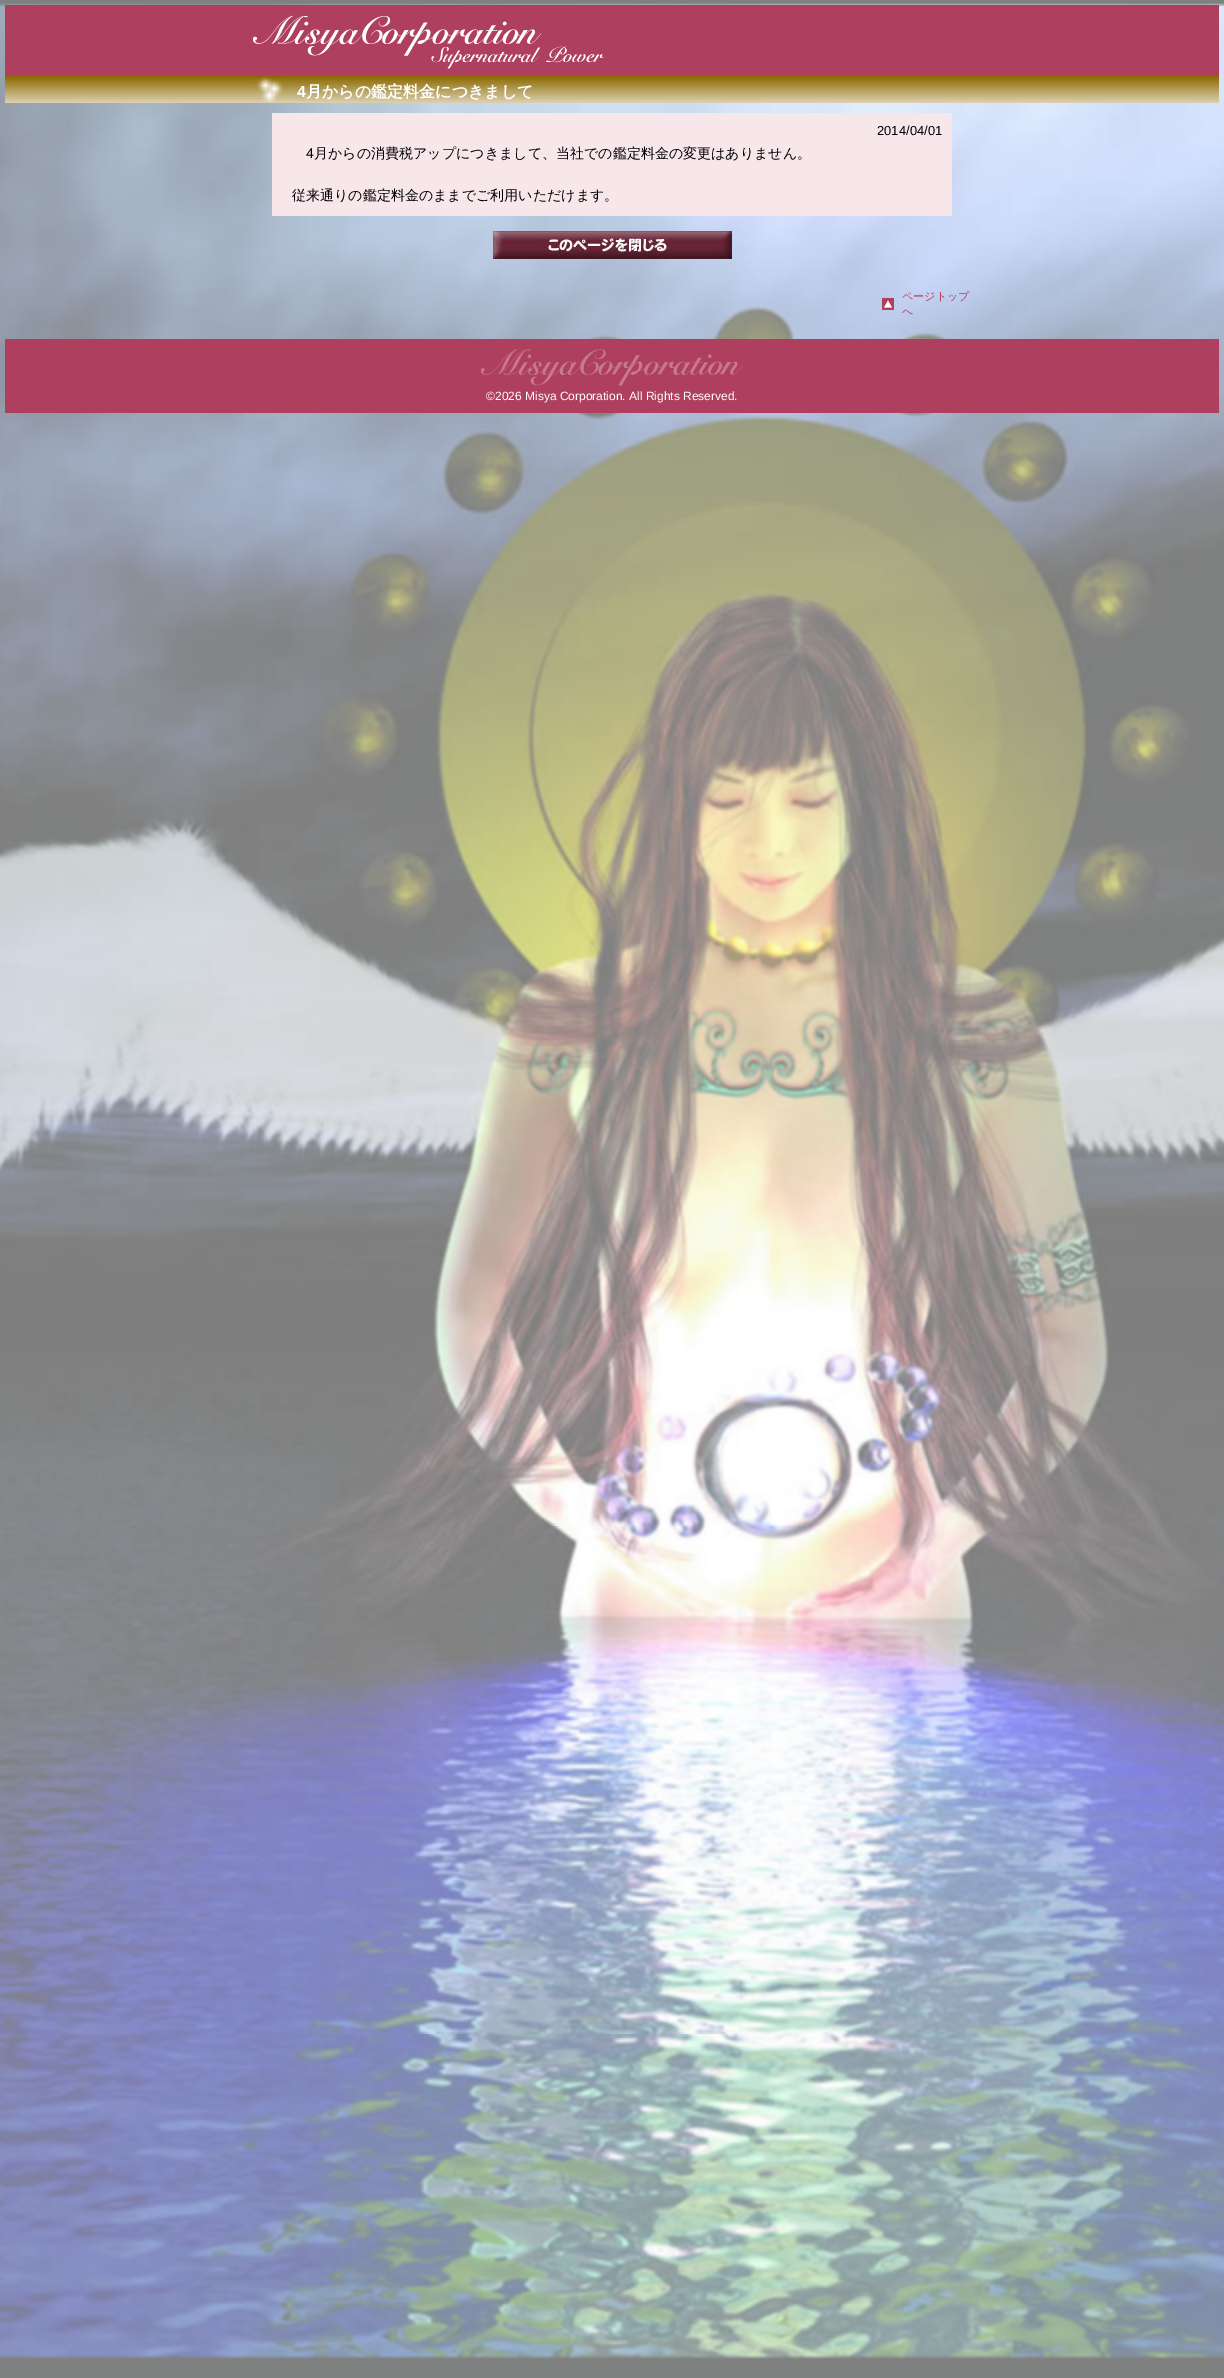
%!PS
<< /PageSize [1224 2378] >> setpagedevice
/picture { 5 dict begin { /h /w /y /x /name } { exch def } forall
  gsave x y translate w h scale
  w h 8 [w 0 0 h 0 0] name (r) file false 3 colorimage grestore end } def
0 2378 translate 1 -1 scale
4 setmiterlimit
0.498 0.506 0.502 setrgbcolor
0 0 1224 2378 rectfill
(img1.rgb) 0 3 1224 2356 picture
0.686 0.247 0.369 setrgbcolor
5 5 1214 70 rectfill
(img2.rgb) 253 15 352 54 picture
(img3.rgb) 5 75 1214 28 picture
(img4.rgb) 252 76 32 27 picture
/LiberationSans-Bold [16 0 0 -16 0 0] selectfont
1 setgray
297 97 moveto (4) show
/WenQuanYiZenHei-Bold [16 0 0 -16 0 0] selectfont
306 97 moveto (月からの鑑定料金につきまして) show
0.969 0.902 0.918 setrgbcolor
272 113 680 103 rectfill
/LiberationSans-Regular [13 0 0 -13 0 0] selectfont
0 setgray
877 135 moveto (2014/04/01) show
/LiberationSans-Regular [14 0 0 -14 0 0] selectfont
306 158 moveto (4) show
/WenQuanYiZenHei-Medium [14 0 0 -14 0 0] selectfont
314 158 moveto (月からの消費税アップにつきまして、当社での鑑定料金の変更はありません。) show
292 200 moveto (従来通りの鑑定料金のままでご利用いただけます。) show
(img5.rgb) 493 231 239 28 picture
(img6.rgb) 882 298 12 12 picture
/WenQuanYiZenHei-Medium [11 0 0 -11 0 0] selectfont
0.686 0.247 0.369 setrgbcolor
902 300 moveto (ページトップ) show
902 315 moveto (へ) show
5 339 1214 74 rectfill
(img7.rgb) 481 349 262 37 picture
/LiberationSans-Regular [12 0 0 -12 0 0] selectfont
1 setgray
486 400 moveto (©2026 Misya Corporation. All Rights Reserved.) show
showpage
